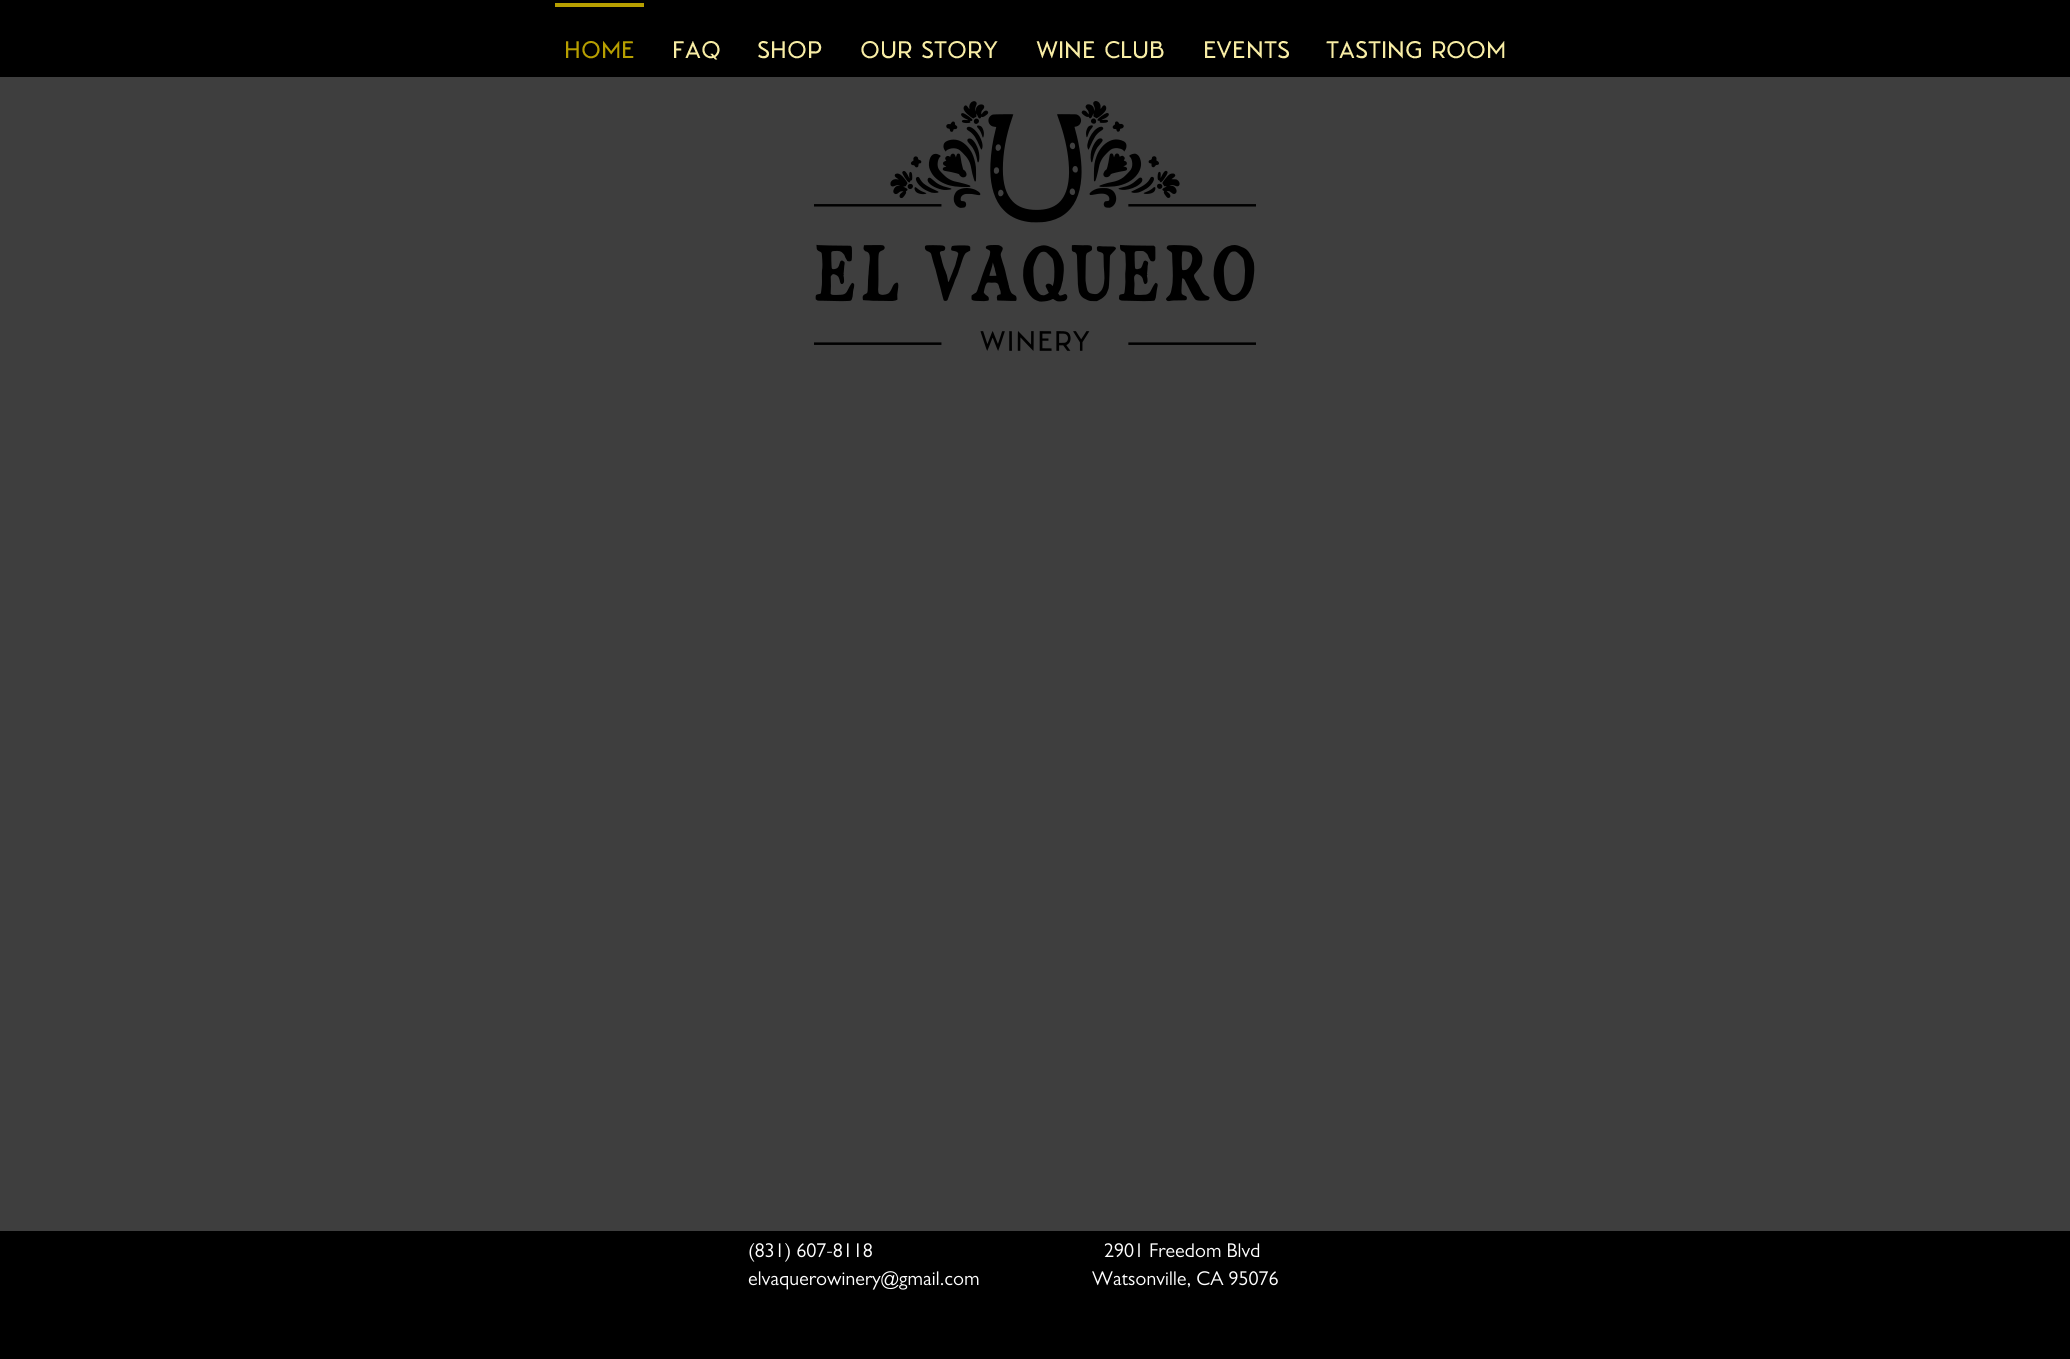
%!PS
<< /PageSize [2070 1359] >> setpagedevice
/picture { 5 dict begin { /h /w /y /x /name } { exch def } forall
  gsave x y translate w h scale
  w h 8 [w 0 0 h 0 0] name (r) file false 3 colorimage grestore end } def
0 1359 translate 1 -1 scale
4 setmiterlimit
0 setgray
0 0 2070 1359 rectfill
0.718 0.624 0 setrgbcolor
555 3 89 4 rectfill
/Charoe-SemiBold [24 0 0 -24 0 0] selectfont
564 58 moveto (HOME) show
0.973 0.929 0.647 setrgbcolor
672 58 moveto (FAQ) show
757 58 moveto (SHOP) show
860 58 moveto (OUR STORY) show
1036 58 moveto (WINE CLUB) show
1203 58 moveto (EVENTS) show
1326 58 moveto (TASTING ROOM) show
0.243 setgray
0 77 2070 1154 rectfill
(img1.rgb) 814 101 442 250 picture
(img2.rgb) 749 1243 123 19 picture
(img3.rgb) 748 1271 231 19 picture
(img4.rgb) 1104 1243 156 15 picture
(img5.rgb) 1092 1271 186 17 picture
showpage
